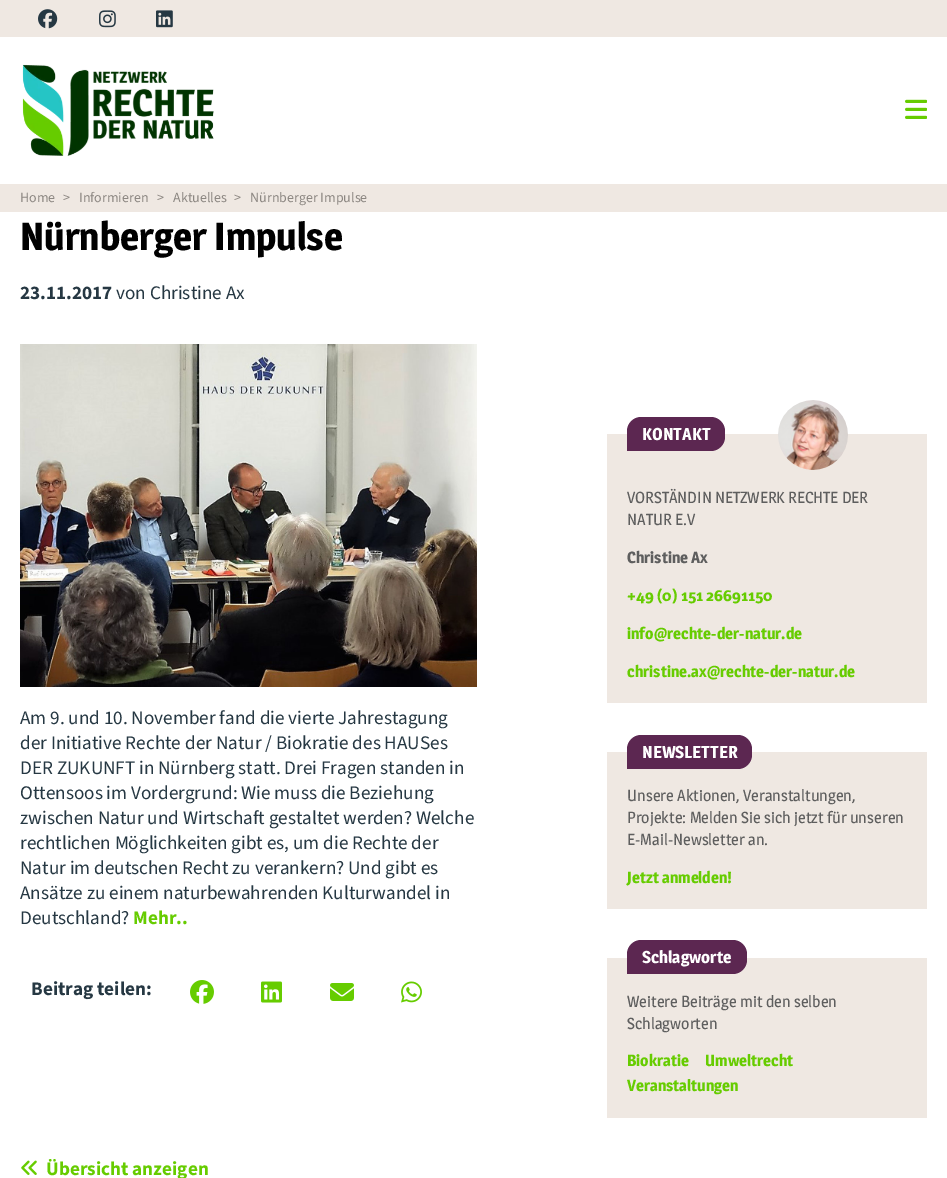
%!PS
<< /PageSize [947 1178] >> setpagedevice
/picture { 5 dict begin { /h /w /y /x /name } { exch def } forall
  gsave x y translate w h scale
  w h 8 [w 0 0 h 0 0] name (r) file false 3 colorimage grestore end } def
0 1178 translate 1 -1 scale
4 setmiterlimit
1 setgray
0 0 947 1178 rectfill
0.937 0.91 0.886 setrgbcolor
0 0 947 37 rectfill
(img1.rgb) 38 9 20 20 picture
(img2.rgb) 99 10 17 18 picture
(img3.rgb) 156 10 17 18 picture
(img4.rgb) 22 64 192 92 picture
(img5.rgb) 905 99 22 20 picture
0 184 947 28 rectfill
/SourceSans3-ExtraLight [14 0 0 -14 0 0] selectfont
0.549 0.529 0.51 setrgbcolor
20 202 moveto (Home) show
63 202 moveto (>) show
79 202 moveto (Informieren) show
157 202 moveto (>) show
173 202 moveto (Aktuelles) show
234 202 moveto (>) show
250 202 moveto (Nürnberger Impulse) show
/Magra-Bold [38.5 0 0 -38.5 0 0] selectfont
0 setgray
20 250 moveto (Nürnberger Impulse) show
/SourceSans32-ExtraLight [19.2 0 0 -19.2 0 0] selectfont
0.149 0.22 0.263 setrgbcolor
20 299 moveto (23.11.2017) show
/SourceSans3-ExtraLight [19.2 0 0 -19.2 0 0] selectfont
116 299 moveto (von Christine Ax) show
(img6.rgb) 20 344 457 343 picture
20 724 moveto (Am 9. und 10. November fand die vierte Jahrestagung) show
20 749 moveto (der Initiative Rechte der Natur / Biokratie des HAUSes) show
20 774 moveto (DER ZUKUNFT in Nürnberg statt. Drei Fragen standen in) show
20 799 moveto (Ottensoos im Vordergrund: Wie muss die Beziehung) show
20 824 moveto (zwischen Natur und Wirtschaft gestaltet werden? Welche) show
20 849 moveto (rechtlichen Möglichkeiten gibt es, um die Rechte der) show
20 874 moveto (Natur im deutschen Recht zu verankern? Und gibt es) show
20 899 moveto (Ansätze zu einem naturbewahrenden Kulturwandel in) show
20 924 moveto (Deutschland?) show
/SourceSans32-ExtraLight [19.2 0 0 -19.2 0 0] selectfont
0.4 0.8 0 setrgbcolor
133 924 moveto (Mehr..) show
0.149 0.22 0.263 setrgbcolor
31 995 moveto (Beitrag teilen:) show
(img7.rgb) 190 980 24 24 picture
(img8.rgb) 261 981 21 22 picture
(img9.rgb) 330 983 24 18 picture
(img10.rgb) 401 981 21 22 picture
0.937 0.91 0.886 setrgbcolor
607 434 320 269 rectfill
0.361 0.153 0.318 setrgbcolor
newpath 641 417 moveto 711 417 lineto 718.5 417 725 423.5 725 431 curveto 725 437 lineto 725 444.5 718.5 451 711 451 curveto 627 451 lineto 627 431 lineto 627 423.5 633.5 417 641 417 curveto closepath fill
/Magra-Bold [17 0 0 -17 0 0] selectfont
1 setgray
642 440 moveto (KONTAKT) show
(img11.rgb) 778 400 70 70 picture
/Magra-Regular [16 0 0 -16 0 0] selectfont
0.369 setgray
627 503 moveto (VORSTÄNDIN NETZWERK RECHTE DER) show
627 525 moveto (NATUR E.V) show
/Magra-Bold [16 0 0 -16 0 0] selectfont
627 563 moveto (Christine Ax) show
0.4 0.8 0 setrgbcolor
627 601 moveto (+49 \(0\) 151 26691150) show
627 639 moveto (info@rechte-der-natur.de) show
627 677 moveto (christine.ax@rechte-der-natur.de) show
0.937 0.91 0.886 setrgbcolor
607 752 320 157 rectfill
0.361 0.153 0.318 setrgbcolor
newpath 641 735 moveto 738 735 lineto 745.5 735 752 741.5 752 749 curveto 752 755 lineto 752 762.5 745.5 769 738 769 curveto 627 769 lineto 627 749 lineto 627 741.5 633.5 735 641 735 curveto closepath fill
/Magra-Bold [17 0 0 -17 0 0] selectfont
1 setgray
642 758 moveto (NEWSLETTER) show
/Magra-Regular [16 0 0 -16 0 0] selectfont
0.369 setgray
627 801 moveto (Unsere Aktionen, Veranstaltungen,) show
627 823 moveto (Projekte: Melden Sie sich jetzt für unseren) show
627 845 moveto (E-Mail-Newsletter an.) show
/Magra-Bold [16 0 0 -16 0 0] selectfont
0.4 0.8 0 setrgbcolor
627 883 moveto (Jetzt anmelden!) show
0.937 0.91 0.886 setrgbcolor
607 958 320 160 rectfill
0.361 0.153 0.318 setrgbcolor
newpath 641 940 moveto 733 940 lineto 740.5 940 747 946.5 747 954 curveto 747 960 lineto 747 967.5 740.5 974 733 974 curveto 627 974 lineto 627 954 lineto 627 946.5 633.5 940 641 940 curveto closepath fill
/Magra-Bold [17 0 0 -17 0 0] selectfont
1 setgray
642 963 moveto (Schlagworte) show
/Magra-Regular [16 0 0 -16 0 0] selectfont
0.369 setgray
627 1007 moveto (Weitere Beiträge mit den selben) show
627 1029 moveto (Schlagworten) show
/Magra-Bold [16 0 0 -16 0 0] selectfont
0.4 0.8 0 setrgbcolor
627 1066 moveto (Biokratie) show
705 1066 moveto (Umweltrecht) show
627 1091 moveto (Veranstaltungen) show
(img12.rgb) 21 1160 16 15 picture
/SourceSans32-ExtraLight [19.2 0 0 -19.2 0 0] selectfont
46 1175 moveto (Übersicht anzeigen) show
showpage
